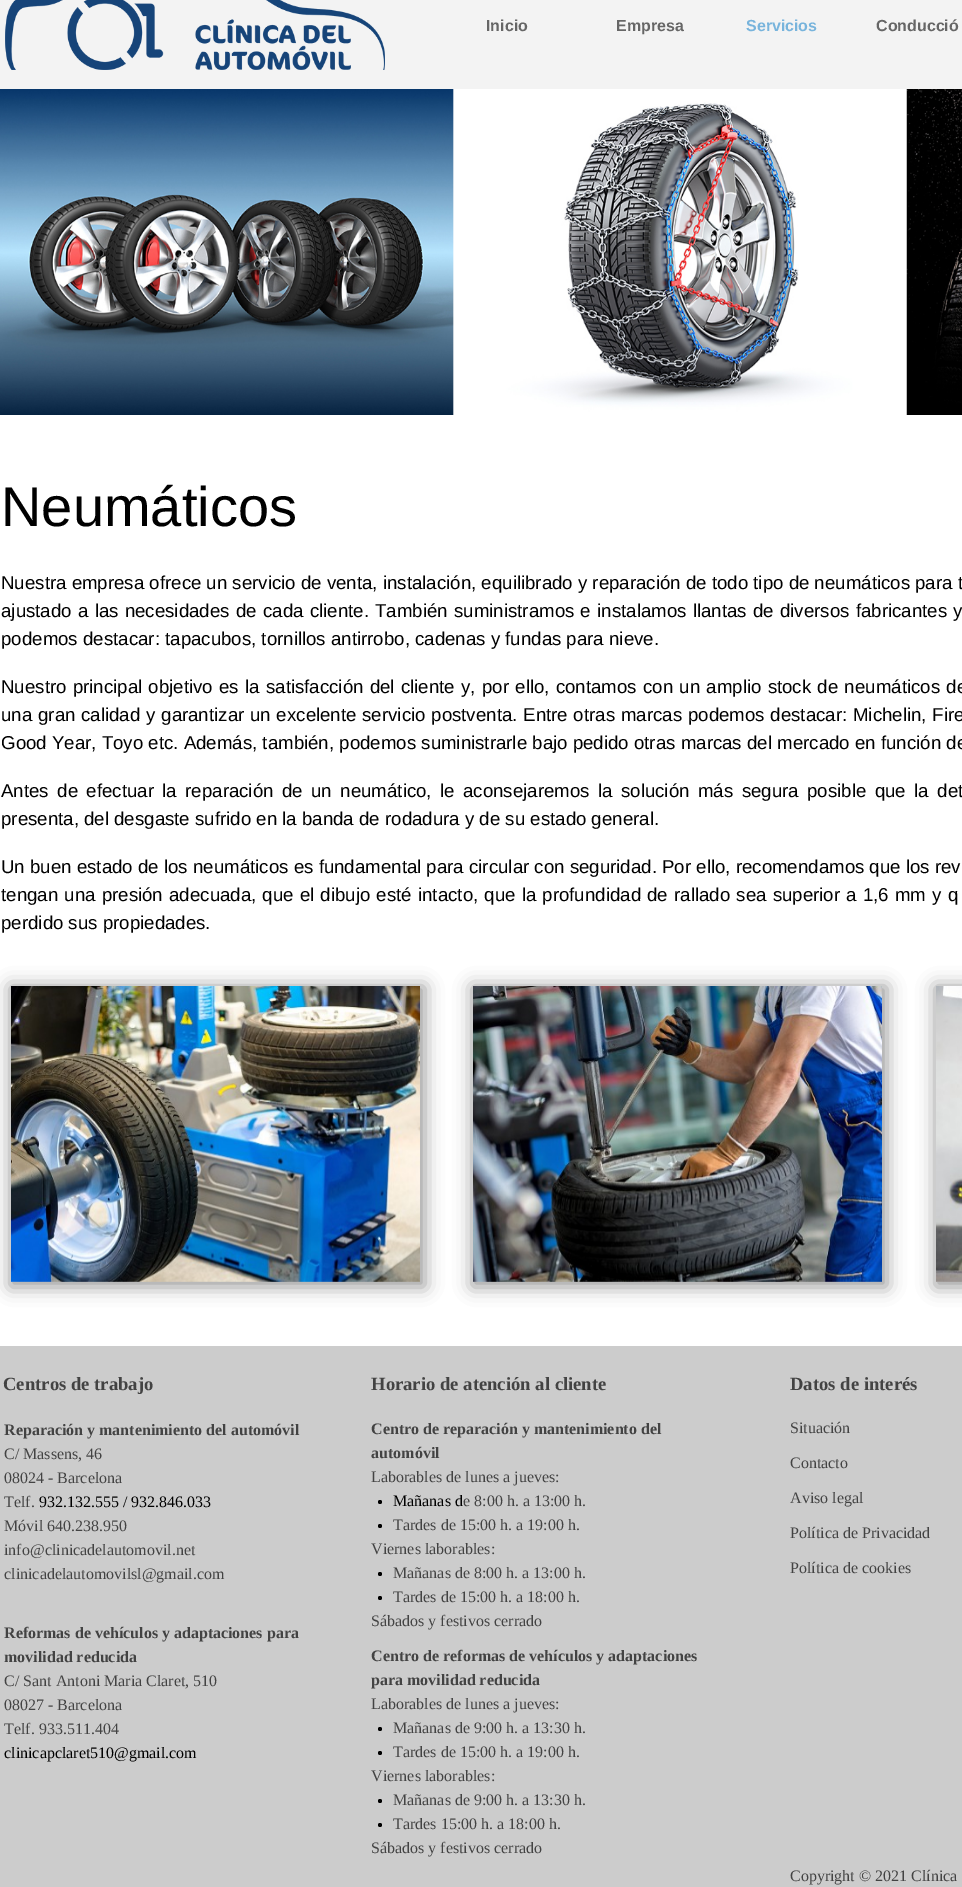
%!PS
<< /PageSize [962 1887] /PageUsesTransparency true >> setpagedevice
/alpha { dup .setfillconstantalpha .setstrokeconstantalpha } def
/roundrect { 5 dict begin { /r /h /w /y /x } { exch def } forall
  x r add y moveto x w add y 2 copy h add r arct x w add y h add x 1 index r arct
  x y h add x y r arct x y 2 copy exch w add exch r arct closepath end } def
/shadow { 12 dict begin { /a /b /q /h /w /y /x } { exch def } forall gsave /was 0 def
  9 -2 -9 { dup b mul 4 div /e exch def 1 sub .425 mul 2.718 exch exp 1 add a .99 .min exch div /now exch def
    1 1 now sub 1 was sub div sub alpha /was now def
    w h .min e 2 mul add 0 gt { x e sub y e sub w e 2 mul add h e 2 mul add
      q e add b .6 mul add w h .min 2 div e add .min 0 .max roundrect fill } if } for grestore end } def
/picture { 5 dict begin { /h /w /y /x /name } { exch def } forall
  gsave x y translate w h scale
  w h 8 [w 0 0 h 0 0] name (r) file false 3 colorimage grestore end } def
0 .pushpdf14devicefilter
0 1887 translate 1 -1 scale
4 setmiterlimit
1 setgray
0 0 962 1887 rectfill
0.953 setgray
0 0 962 89 rectfill
(img1.rgb) 5 0 380 70 picture
/LiberationSans-Bold [16 0 0 -16 0 0] selectfont
0.4 setgray
486 31 moveto (Inicio) show
616 31 moveto (Empresa) show
0.471 0.706 0.863 setrgbcolor
746 31 moveto (Servicios) show
0.4 setgray
876 31 moveto (Conducció) show
(img2.rgb) 0 89 962 326 picture
/LiberationSans-Regular [56 0 0 -56 0 0] selectfont
0 setgray
1 526 moveto (Neumáticos) show
/LiberationSans-Regular [18.67 0 0 -18.67 0 0] selectfont
1 589 moveto (Nuestra empresa ofrece un servicio de venta, instalación, equilibrado y reparación de todo tipo de neumáticos para t) show
1 617 moveto 1.1 0 32 (ajustado a las necesidades de cada cliente. También suministramos e instalamos llantas de diversos fabricantes y) widthshow
1 645 moveto (podemos destacar: tapacubos, tornillos antirrobo, cadenas y fundas para nieve.) show
1 693 moveto 1.1 0 32 (Nuestro principal objetivo es la satisfacción del cliente y, por ello, contamos con un amplio stock de neumáticos de) widthshow
1 721 moveto 0.6 0 32 (una gran calidad y garantizar un excelente servicio postventa. Entre otras marcas podemos destacar: Michelin, Fire) widthshow
1 749 moveto (Good Year, Toyo etc. Además, también, podemos suministrarle bajo pedido otras marcas del mercado en función de) show
1 797 moveto 3.25 0 32 (Antes de efectuar la reparación de un neumático, le aconsejaremos la solución más segura posible que la det) widthshow
1 825 moveto (presenta, del desgaste sufrido en la banda de rodadura y de su estado general.) show
1 873 moveto (Un buen estado de los neumáticos es fundamental para circular con seguridad. Por ello, recomendamos que los rev) show
1 901 moveto 1 0 32 (tengan una presión adecuada, que el dibujo esté intacto, que la profundidad de rallado sea superior a 1,6 mm y q) widthshow
1 929 moveto (perdido sus propiedades.) show
0.6 setgray
10 986 415 301 0 9 1 shadow
(img3.rgb) 11 986 409 296 picture
472 986 415 301 0 9 1 shadow
(img4.rgb) 473 986 409 296 picture
935 986 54 301 0 9 1 shadow
(img5.rgb) 936 986 26 296 picture
0.8 setgray
0 1346 962 541 rectfill
/LiberationSerif-Bold [18.67 0 0 -18.67 0 0] selectfont
0.263 setgray
3 1390 moveto (Centros de trabajo) show
371 1390 moveto (Horario de atención al cliente) show
790 1390 moveto (Datos de interés) show
/LiberationSerif-Bold [16 0 0 -16 0 0] selectfont
4 1435 moveto (Reparación y mantenimiento del automóvil) show
/LiberationSerif-Regular [16 0 0 -16 0 0] selectfont
4 1459 moveto (C/ Massens, 46) show
4 1483 moveto (08024 - Barcelona) show
4 1507 moveto (Telf.) show
0 setgray
39 1507 moveto (932.132.555 / 932.846.033) show
0.263 setgray
4 1531 moveto (Móvil 640.238.950) show
4 1555 moveto (info@clinicadelautomovil.net) show
4 1579 moveto (clinicadelautomovilsl@gmail.com) show
/LiberationSerif-Bold [16 0 0 -16 0 0] selectfont
371 1434 moveto (Centro de reparación y mantenimiento del) show
371 1458 moveto (automóvil) show
/LiberationSerif-Regular [16 0 0 -16 0 0] selectfont
371 1482 moveto (Laborables de lunes a jueves:) show
0 setgray
newpath 380 1502 2 0 360 arc closepath fill
393 1506 moveto (Mañanas d) show
0.263 setgray
463 1506 moveto (e 8:00 h. a 13:00 h.) show
0 setgray
newpath 380 1526 2 0 360 arc closepath fill
0.263 setgray
393 1530 moveto (Tardes de 15:00 h. a 19:00 h.) show
371 1554 moveto (Viernes laborables:) show
0 setgray
newpath 380 1574 2 0 360 arc closepath fill
0.263 setgray
393 1578 moveto (Mañanas de 8:00 h. a 13:00 h.) show
0 setgray
newpath 380 1598 2 0 360 arc closepath fill
0.263 setgray
393 1602 moveto (Tardes de 15:00 h. a 18:00 h.) show
371 1626 moveto (Sábados y festivos cerrado) show
790 1433 moveto (Situación) show
790 1468 moveto (Contacto) show
790 1503 moveto (Aviso legal) show
790 1538 moveto (Política de Privacidad) show
790 1573 moveto (Política de cookies) show
/LiberationSerif-Bold [16 0 0 -16 0 0] selectfont
4 1638 moveto (Reformas de vehículos y adaptaciones para) show
4 1662 moveto (movilidad reducida) show
/LiberationSerif-Regular [16 0 0 -16 0 0] selectfont
4 1686 moveto (C/ Sant Antoni Maria Claret, 510) show
4 1710 moveto (08027 - Barcelona) show
4 1734 moveto (Telf. 933.511.404) show
0 setgray
4 1758 moveto (clinicapclaret510@gmail.com) show
/LiberationSerif-Bold [16 0 0 -16 0 0] selectfont
0.263 setgray
371 1661 moveto (Centro de reformas de vehículos y adaptaciones) show
371 1685 moveto (para movilidad reducida) show
/LiberationSerif-Regular [16 0 0 -16 0 0] selectfont
371 1709 moveto (Laborables de lunes a jueves:) show
0 setgray
newpath 380 1729 2 0 360 arc closepath fill
0.263 setgray
393 1733 moveto (Mañanas de 9:00 h. a 13:30 h.) show
0 setgray
newpath 380 1753 2 0 360 arc closepath fill
0.263 setgray
393 1757 moveto (Tardes de 15:00 h. a 19:00 h.) show
371 1781 moveto (Viernes laborables:) show
0 setgray
newpath 380 1801 2 0 360 arc closepath fill
0.263 setgray
393 1805 moveto (Mañanas de 9:00 h. a 13:30 h.) show
0 setgray
newpath 380 1825 2 0 360 arc closepath fill
0.263 setgray
393 1829 moveto (Tardes 15:00 h. a 18:00 h.) show
371 1853 moveto (Sábados y festivos cerrado) show
790 1881 moveto (Copyright © 2021 Clínica) show
.poppdf14devicefilter showpage
